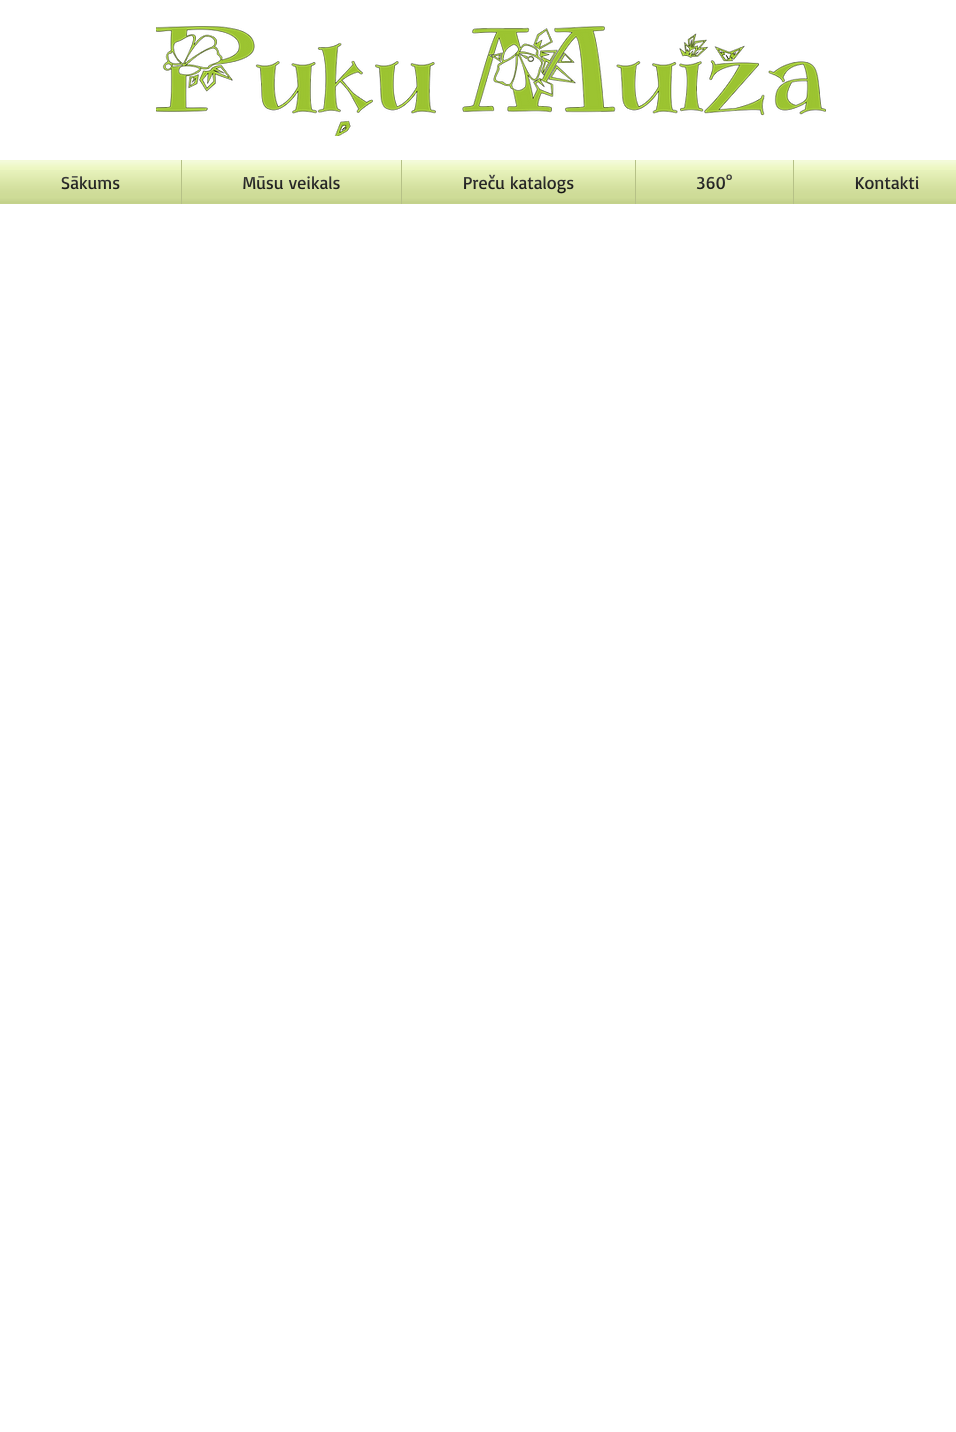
%!PS
<< /PageSize [956 1432] >> setpagedevice
/picture { 5 dict begin { /h /w /y /x /name } { exch def } forall
  gsave x y translate w h scale
  w h 8 [w 0 0 h 0 0] name (r) file false 3 colorimage grestore end } def
0 1432 translate 1 -1 scale
4 setmiterlimit
1 setgray
0 0 956 1432 rectfill
(img1.rgb) 156 26 670 110 picture
0.89 0.953 0.635 setrgbcolor
0 160 181 44 rectfill
/Basic-Regular [18 0 0 -18 0 0] selectfont
0 setgray
61 189 moveto (Sākums) show
(img2.rgb) 0 160 181 41 picture
(img3.rgb) 0 170 181 34 picture
0.89 0.953 0.635 setrgbcolor
182 160 219 44 rectfill
0.714 0.757 0.529 setrgbcolor
181 160 1 44 rectfill
0 setgray
242 189 moveto (Mūsu veikals) show
(img4.rgb) 182 160 219 41 picture
(img5.rgb) 182 170 219 34 picture
0.89 0.953 0.635 setrgbcolor
402 160 233 44 rectfill
0.714 0.757 0.529 setrgbcolor
401 160 1 44 rectfill
0 setgray
463 189 moveto (Preču katalogs) show
(img6.rgb) 402 160 233 41 picture
(img7.rgb) 402 170 233 34 picture
0.89 0.953 0.635 setrgbcolor
636 160 157 44 rectfill
0.714 0.757 0.529 setrgbcolor
635 160 1 44 rectfill
0 setgray
696 189 moveto (360°) show
(img8.rgb) 636 160 157 41 picture
(img9.rgb) 636 170 157 34 picture
0.89 0.953 0.635 setrgbcolor
794 160 162 44 rectfill
0.714 0.757 0.529 setrgbcolor
793 160 1 44 rectfill
0 setgray
855 189 moveto (Kontakti) show
(img10.rgb) 794 160 162 41 picture
(img11.rgb) 794 170 162 34 picture
showpage
